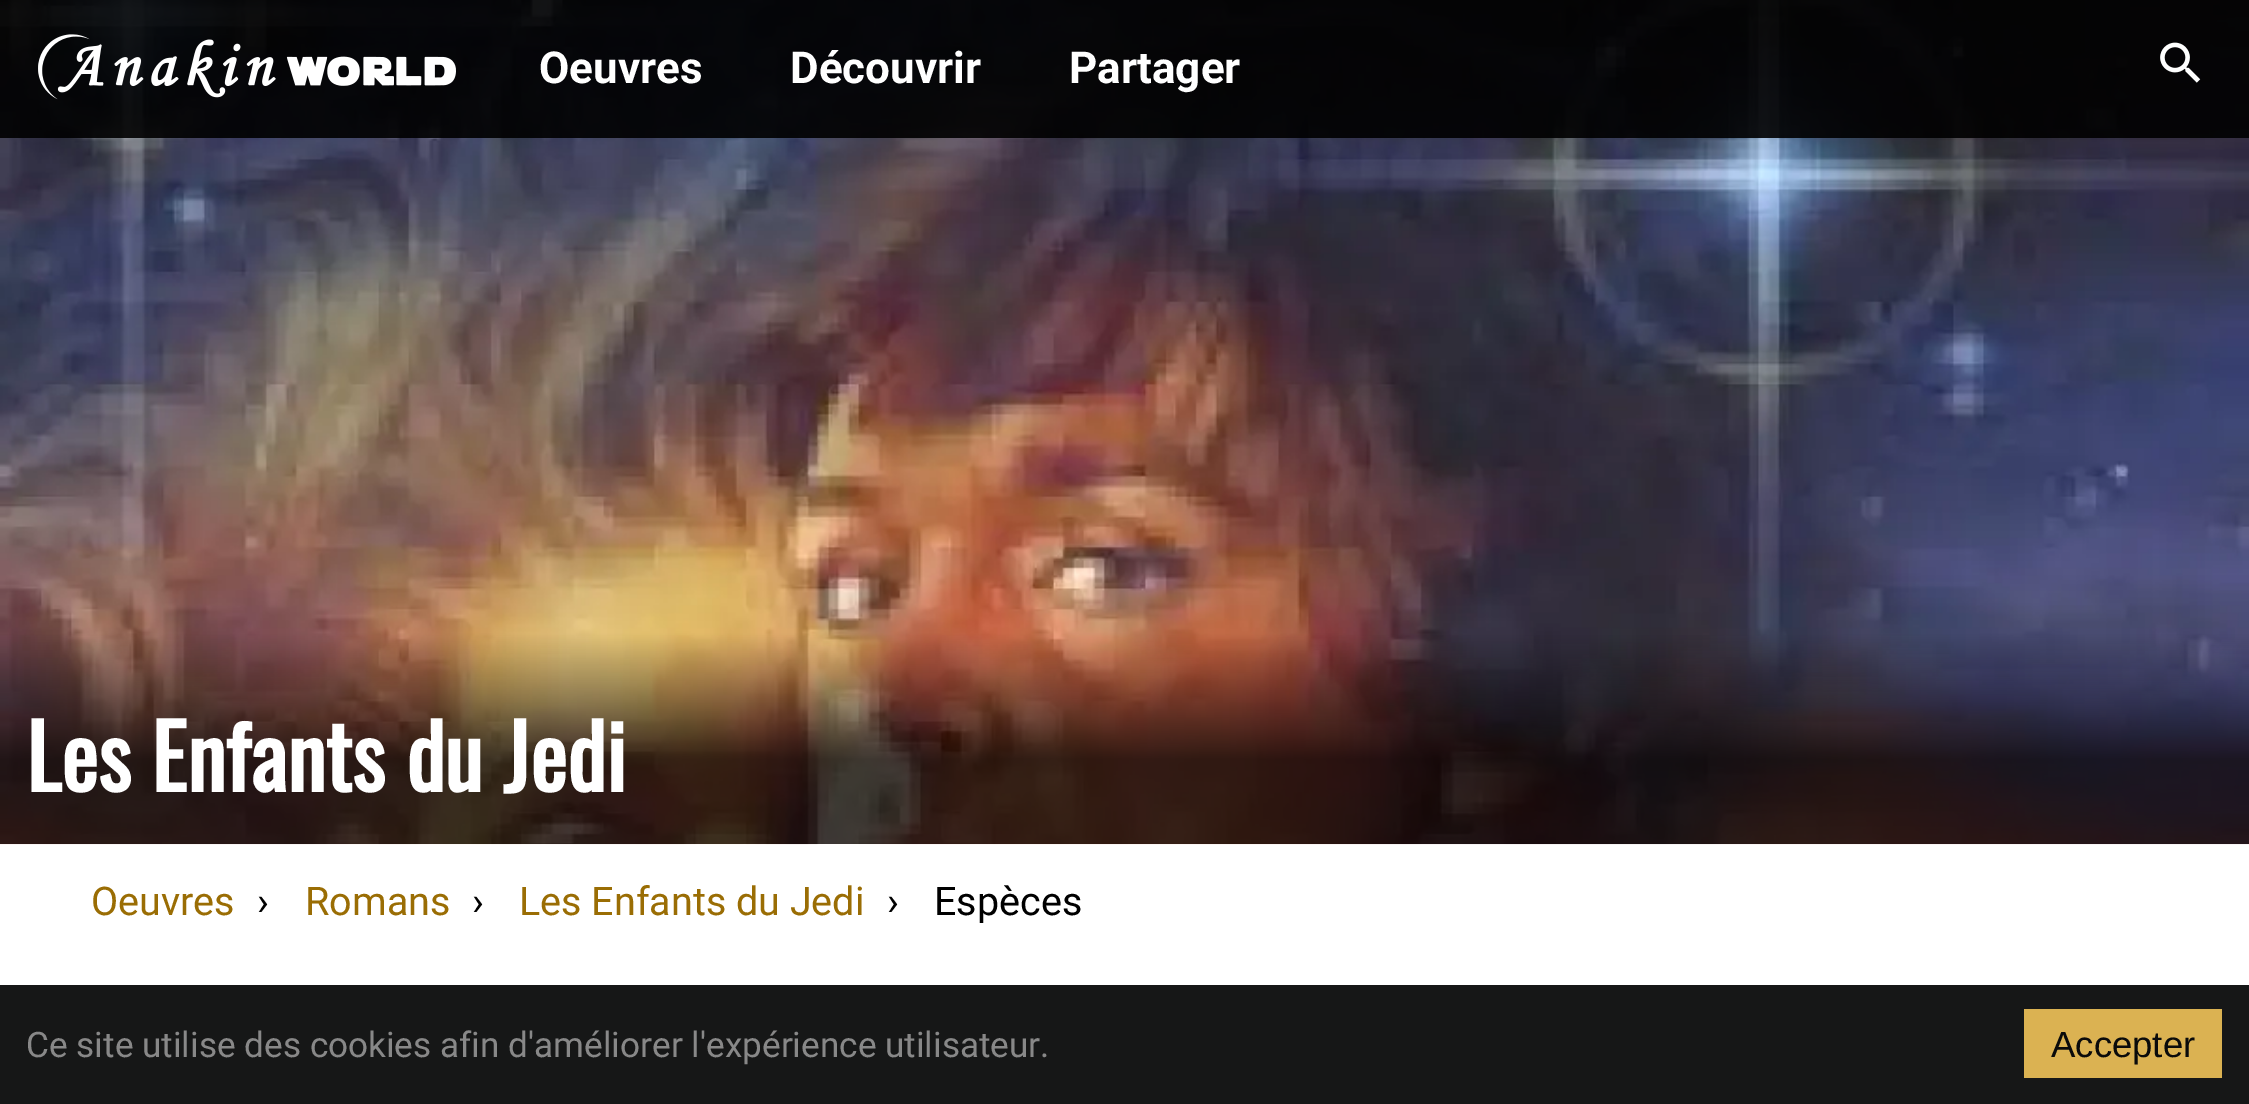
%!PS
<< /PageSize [2249 1104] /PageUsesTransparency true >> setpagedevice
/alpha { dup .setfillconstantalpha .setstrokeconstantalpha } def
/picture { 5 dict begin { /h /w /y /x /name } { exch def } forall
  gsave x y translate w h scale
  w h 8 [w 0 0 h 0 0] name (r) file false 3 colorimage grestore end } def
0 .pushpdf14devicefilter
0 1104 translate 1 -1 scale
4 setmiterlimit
1 setgray
0 0 2249 1104 rectfill
(img3.rgb) 0 0 2249 845 picture
0.9 alpha
0 setgray
0 0 2249 138 rectfill
1 alpha
(img1.rgb) 38 34 418 66 picture
/Roboto-Bold [44 0 0 -44 0 0] selectfont
1 setgray
539 83 moveto (Oeuvres) show
790 83 moveto (Découvrir) show
1069 83 moveto (Partager) show
(img2.rgb) 2160 42 41 41 picture
0.086 0.09 0.09 setrgbcolor
0 985 2249 119 rectfill
/Oswald-Bold [88 0 0 -88 0 0] selectfont
1 setgray
26 792 moveto (Les Enfants du Jedi) show
/Roboto-Regular [39.5 0 0 -39.5 0 0] selectfont
0.604 0.427 0.016 setrgbcolor
91 915 moveto (Oeuvres) show
0 setgray
257 915 moveto (›) show
0.604 0.427 0.016 setrgbcolor
305 915 moveto (Romans) show
0 setgray
472 915 moveto (›) show
0.604 0.427 0.016 setrgbcolor
519 915 moveto (Les Enfants du Jedi) show
0 setgray
887 915 moveto (›) show
934 915 moveto (Espèces) show
/Roboto-Regular [35.2 0 0 -35.2 0 0] selectfont
0.533 setgray
26 1057 moveto (Ce site utilise des cookies afin d'améliorer l'expérience utilisateur.) show
0.859 0.698 0.322 setrgbcolor
2024 1009 198 69 rectfill
/LiberationSans-Regular [36.5 0 0 -36.5 0 0] selectfont
0.039 0.043 0.043 setrgbcolor
2051 1057 moveto (Accepter) show
.poppdf14devicefilter showpage
